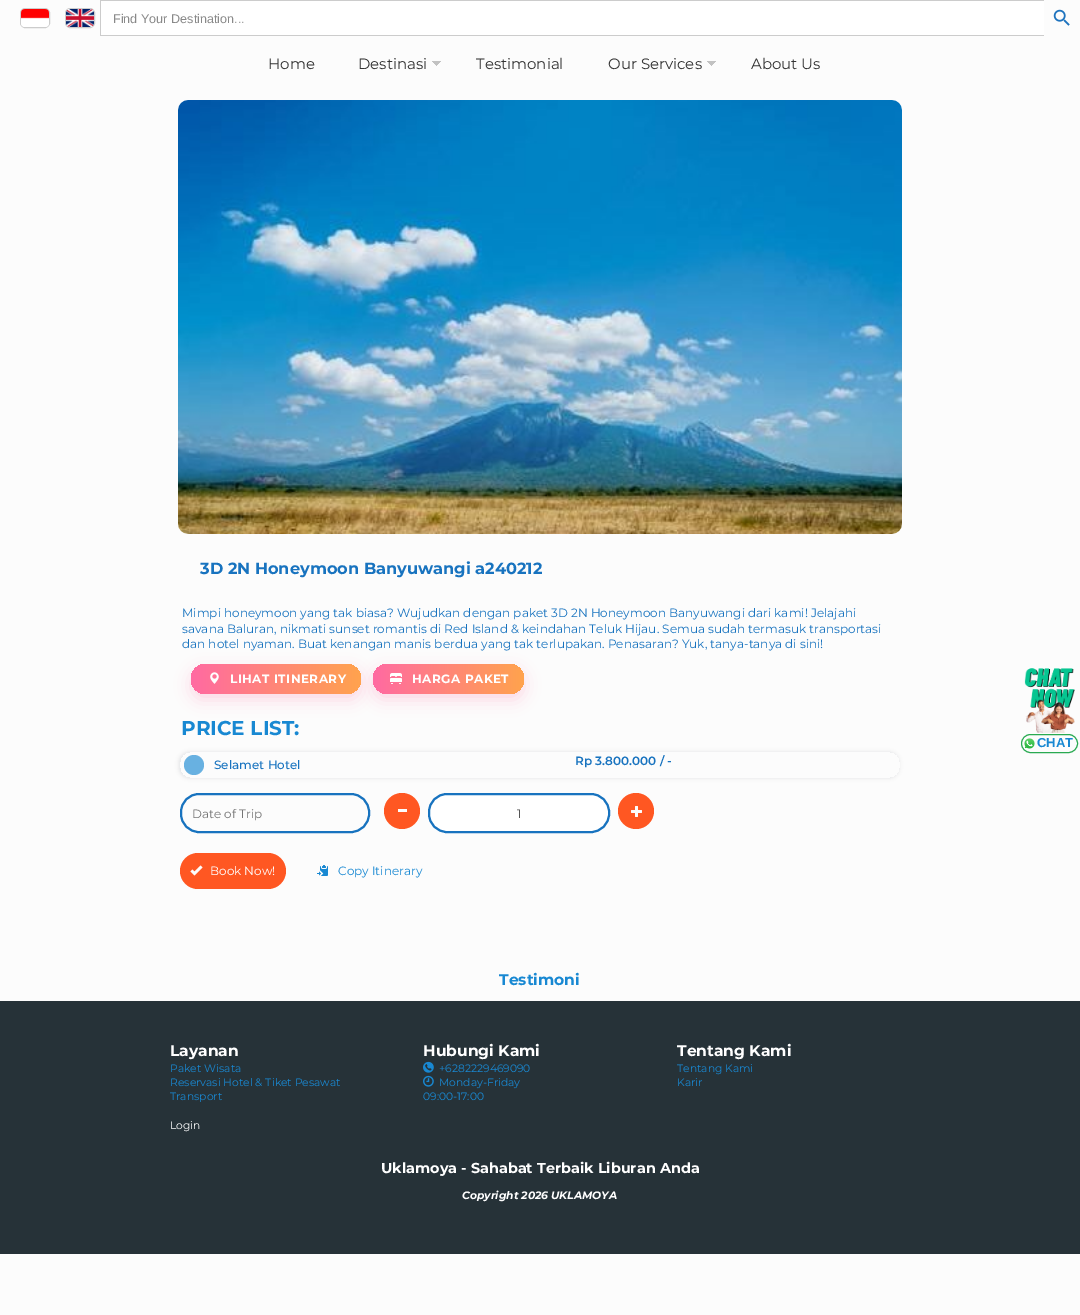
%!PS
<< /PageSize [1080 1315] /PageUsesTransparency true >> setpagedevice
/alpha { dup .setfillconstantalpha .setstrokeconstantalpha } def
/roundrect { 5 dict begin { /r /h /w /y /x } { exch def } forall
  x r add y moveto x w add y 2 copy h add r arct x w add y h add x 1 index r arct
  x y h add x y r arct x y 2 copy exch w add exch r arct closepath end } def
/shadow { 12 dict begin { /a /b /q /h /w /y /x } { exch def } forall gsave /was 0 def
  9 -2 -9 { dup b mul 4 div /e exch def 1 sub .425 mul 2.718 exch exp 1 add a .99 .min exch div /now exch def
    1 1 now sub 1 was sub div sub alpha /was now def
    w h .min e 2 mul add 0 gt { x e sub y e sub w e 2 mul add h e 2 mul add
      q e add b .6 mul add w h .min 2 div e add .min 0 .max roundrect fill } if } for grestore end } def
/picture { 5 dict begin { /h /w /y /x /name } { exch def } forall
  gsave x y translate w h scale
  w h 8 [w 0 0 h 0 0] name (r) file false 3 colorimage grestore end } def
0 .pushpdf14devicefilter
0 1315 translate 1 -1 scale
4 setmiterlimit
0.988 setgray
0 0 1080 1315 rectfill
0.8 setgray
20.5 8.5 29 19 4.5 roundrect stroke
(img1.rgb) 21 9 28 18 picture
65.5 8.5 29 19 4.5 roundrect stroke
(img2.rgb) 66 9 28 18 picture
1 setgray
101 1 943 34 rectfill
0.8 setgray
100 0 944 1 rectfill
100 35 944 1 rectfill
100 0 1 36 rectfill
/LiberationSans-Regular [12.6 0 0 -12.6 0 0] selectfont
0.537 setgray
113 23 moveto (Find Your Destination...) show
(img3.rgb) 1053 9 17 17 picture
/Montserrat-Regular [15 0 0 -15 0 0] selectfont
0.2 setgray
268 69 moveto (Home) show
(img4.rgb) 432 61 9 5 picture
358 69 moveto (Destinasi) show
476 69 moveto (Testimonial) show
(img4.rgb) 707 61 9 5 picture
608 69 moveto (Our Services) show
751 69 moveto (About Us) show
(img5.rgb) 178 100 724 434 picture
/Montserrat-Bold [16.2 0 0 -16.2 0 0] selectfont
0.094 0.451 0.749 setrgbcolor
200 574 moveto (3D 2N Honeymoon Banyuwangi a240212) show
/Montserrat-Regular [12 0 0 -12 0 0] selectfont
182 617 moveto (Mimpi honeymoon yang tak biasa? Wujudkan dengan paket 3D 2N Honeymoon Banyuwangi dari kami! Jelajahi) show
182 633 moveto (savana Baluran, nikmati sunset romantis di Red Island & keindahan Teluk Hijau. Semua sudah termasuk transportasi) show
182 648 moveto (dan hotel nyaman. Buat kenangan manis berdua yang tak terlupakan. Penasaran? Yuk, tanya-tanya di sini!) show
1 0.416 0.635 setrgbcolor
191 670 170 30 15 8 0.25 shadow
gsave 191 664 170 30 15 roundrect clip newpath
<< /ShadingType 2 /ColorSpace /DeviceRGB /Coords [191 679 361 679] /Extend [true true] /Function << /FunctionType 2 /Domain [0 1] /C0 [1 0.416 0.635] /C1 [1 0.639 0.302] /N 1 >> >> shfill grestore
(img6.rgb) 210 672 9 12 picture
/Montserrat-Bold [12 0 0 -12 0 0] selectfont
1 setgray
230 683 moveto 0.5 0 (LIHAT ITINERARY) ashow
1 0.416 0.635 setrgbcolor
373 670 151 30 15 8 0.25 shadow
gsave 373 664 151 30 15 roundrect clip newpath
<< /ShadingType 2 /ColorSpace /DeviceRGB /Coords [373 679 524 679] /Extend [true true] /Function << /FunctionType 2 /Domain [0 1] /C0 [1 0.416 0.635] /C1 [1 0.639 0.302] /N 1 >> >> shfill grestore
(img7.rgb) 390 673 12 11 picture
1 setgray
412 683 moveto 0.5 0 (HARGA PAKET) ashow
/Montserrat-Bold [20 0 0 -20 0 0] selectfont
0.094 0.533 0.824 setrgbcolor
181 735 moveto (PRICE LIST:) show
gsave
newpath 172 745 moveto 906 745 lineto 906 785 lineto 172 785 lineto closepath 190 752 moveto 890 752 lineto 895.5 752 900 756.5 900 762 curveto 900 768 lineto 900 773.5 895.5 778 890 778 curveto 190 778 lineto 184.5 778 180 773.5 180 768 curveto 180 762 lineto 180 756.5 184.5 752 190 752 curveto closepath eoclip newpath
0.012 0.071 0.102 setrgbcolor
179 752 720 26 10 2 0.1 shadow
grestore
0.408 0.694 0.882 setrgbcolor
newpath 194 765 10 0 360 arc closepath fill
/Montserrat-Medium [12 0 0 -12 0 0] selectfont
0.094 0.451 0.749 setrgbcolor
214 769 moveto (Selamet Hotel) show
/Montserrat-SemiBold [12 0 0 -12 0 0] selectfont
575 765 moveto (Rp 3.800.000 / -) show
2 setlinewidth
181 794 188 38 18 roundrect stroke
/Montserrat-Regular [12 0 0 -12 0 0] selectfont
0.459 setgray
192 818 moveto (Date of Trip) show
1 0.341 0.133 setrgbcolor
newpath 402 811 18 0 360 arc closepath fill
0.988 setgray
398 809 9 3 rectfill
1 setgray
429 794 180 38 18 roundrect gsave fill grestore
0.094 0.451 0.749 setrgbcolor
stroke
0.333 setgray
517 818 moveto (1) show
1 0.341 0.133 setrgbcolor
newpath 636 811 18 0 360 arc closepath fill
(img8.rgb) 631 806 11 11 picture
180 853 106 36 18 roundrect fill
(img9.rgb) 190 865 13 11 picture
1 setgray
210 875 moveto (Book Now!) show
(img10.rgb) 317 865 11 11 picture
0.094 0.533 0.824 setrgbcolor
338 875 moveto (Copy Itinerary) show
(img11.rgb) 1024 668 51 65 picture
0.165 0.667 0.322 setrgbcolor
1 setlinewidth
1021.5 734.5 56 18 9 roundrect stroke
(img12.rgb) 1024 738 11 11 picture
/LiberationSans-Bold [13 0 0 -13 0 0] selectfont
0.094 0.533 0.824 setrgbcolor
1037 747 moveto (CHAT) show
/Montserrat-Bold [15.5 0 0 -15.5 0 0] selectfont
499 985 moveto (Testimoni) show
0.149 0.196 0.22 setrgbcolor
0 1001 1080 253 rectfill
1 setgray
170 1056 moveto (Layanan) show
/Montserrat-Regular [10.75 0 0 -10.75 0 0] selectfont
0.094 0.533 0.824 setrgbcolor
170 1072 moveto (Paket Wisata) show
170 1086 moveto (Reservasi Hotel & Tiket Pesawat) show
170 1100 moveto (Transport) show
1 setgray
170 1129 moveto (Login) show
/Montserrat-Bold [15.5 0 0 -15.5 0 0] selectfont
423 1056 moveto (Hubungi Kami) show
(img13.rgb) 423 1061 11 12 picture
/Montserrat-Regular [10.75 0 0 -10.75 0 0] selectfont
0.094 0.533 0.824 setrgbcolor
439 1072 moveto (+6282229469090) show
(img14.rgb) 423 1075 11 12 picture
439 1086 moveto (Monday-Friday) show
423 1100 moveto (09:00-17:00) show
/Montserrat-Bold [15.5 0 0 -15.5 0 0] selectfont
1 setgray
677 1056 moveto (Tentang Kami) show
/Montserrat-Regular [10.75 0 0 -10.75 0 0] selectfont
0.094 0.533 0.824 setrgbcolor
677 1072 moveto (Tentang Kami) show
677 1086 moveto (Karir) show
/Montserrat-Bold [14.4 0 0 -14.4 0 0] selectfont
1 setgray
381 1173 moveto (Uklamoya - Sahabat Terbaik Liburan Anda) show
/Montserrat-BoldItalic [10.75 0 0 -10.75 0 0] selectfont
462 1199 moveto (Copyright 2026 UKLAMOYA) show
.poppdf14devicefilter showpage
